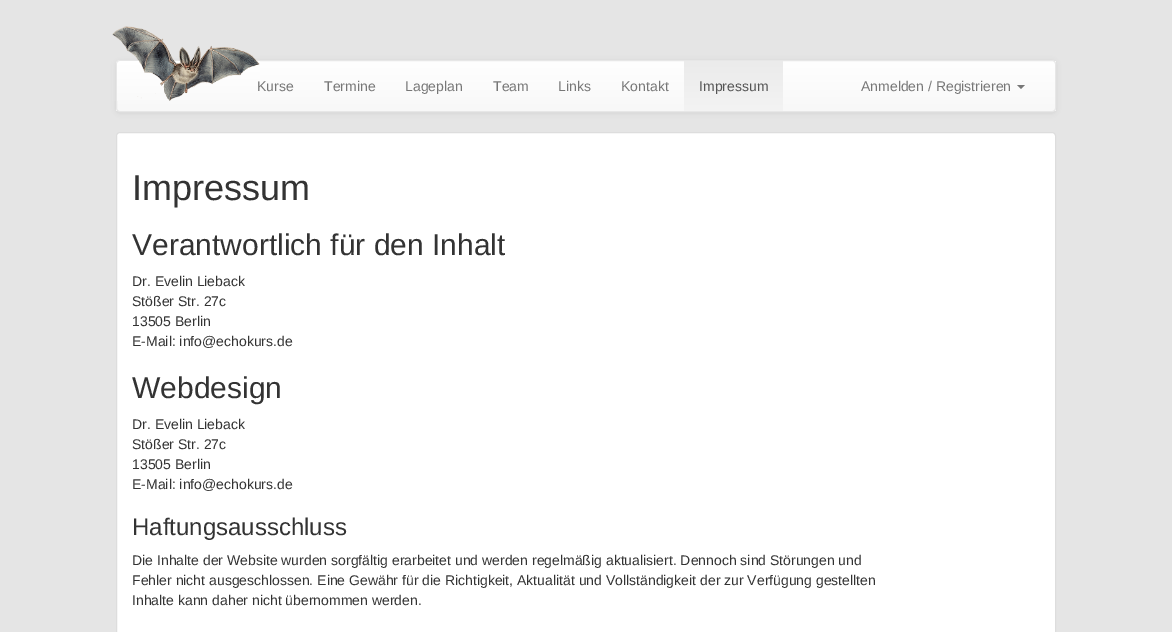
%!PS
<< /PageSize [1172 632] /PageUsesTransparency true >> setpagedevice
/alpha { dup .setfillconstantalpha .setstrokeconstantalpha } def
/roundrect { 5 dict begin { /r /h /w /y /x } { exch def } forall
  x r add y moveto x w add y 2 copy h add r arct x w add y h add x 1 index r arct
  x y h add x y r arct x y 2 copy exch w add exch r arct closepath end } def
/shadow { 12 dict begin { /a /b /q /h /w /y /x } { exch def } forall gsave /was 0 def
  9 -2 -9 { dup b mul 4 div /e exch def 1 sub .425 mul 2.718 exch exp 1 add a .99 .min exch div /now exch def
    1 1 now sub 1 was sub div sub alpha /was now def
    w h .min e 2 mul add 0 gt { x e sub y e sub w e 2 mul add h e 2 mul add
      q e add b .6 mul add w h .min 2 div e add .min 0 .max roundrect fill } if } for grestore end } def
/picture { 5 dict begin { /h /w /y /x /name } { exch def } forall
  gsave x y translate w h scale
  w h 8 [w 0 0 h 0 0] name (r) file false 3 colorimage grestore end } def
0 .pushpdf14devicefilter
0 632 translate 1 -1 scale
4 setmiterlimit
0.898 setgray
0 0 1172 632 rectfill
0 setgray
116 61 940 52 4 2.5 0.07 shadow
gsave
116 60 940 52 4 roundrect clip newpath
gsave newpath 116 61 moveto 1056 61 lineto 1056 111 lineto 116 111 lineto closepath clip newpath
<< /ShadingType 2 /ColorSpace /DeviceRGB /Coords [586 61 586 111] /Extend [true true] /Function << /FunctionType 2 /Domain [0 1] /C0 [1 1 1] /C1 [0.973 0.973 0.973] /N 1 >> >> shfill grestore
grestore
0.906 setgray
116.5 60.5 939 51 3.5 roundrect stroke
/LiberationSans-Regular [14 0 0 -14 0 0] selectfont
0.467 setgray
257 91 moveto (Kurse) show
(img1.rgb) 112 26 148 75 picture
324 91 moveto (Termine) show
405 91 moveto (Lageplan) show
493 91 moveto (Team) show
558 91 moveto (Links) show
621 91 moveto (Kontakt) show
gsave newpath 684 61 moveto 783 61 lineto 783 111 lineto 684 111 lineto closepath clip newpath
<< /ShadingType 2 /ColorSpace /DeviceRGB /Coords [734 61 734 111] /Extend [true true] /Function << /FunctionType 2 /Domain [0 1] /C0 [0.922 0.922 0.922] /C1 [0.953 0.953 0.953] /N 1 >> >> shfill grestore
0.333 setgray
699 91 moveto (Impressum) show
0.467 setgray
861 91 moveto (Anmelden / Registrieren) show
newpath 1017 85 moveto 1025 85 lineto 1021 89 lineto closepath fill
1 setgray
116.5 132.5 939 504 3.5 roundrect gsave fill grestore
0.867 setgray
stroke
/LiberationSans-Regular [36 0 0 -36 0 0] selectfont
0.2 setgray
132 200 moveto (Impressum) show
/LiberationSans-Regular [30 0 0 -30 0 0] selectfont
132 255 moveto (Verantwortlich für den Inhalt) show
/LiberationSans-Regular [14 0 0 -14 0 0] selectfont
132 286 moveto (Dr. Evelin Lieback) show
132 306 moveto (Stößer Str. 27c) show
132 326 moveto (13505 Berlin) show
132 346 moveto (E-Mail: info@echokurs.de) show
/LiberationSans-Regular [30 0 0 -30 0 0] selectfont
132 398 moveto (Webdesign) show
/LiberationSans-Regular [14 0 0 -14 0 0] selectfont
132 429 moveto (Dr. Evelin Lieback) show
132 449 moveto (Stößer Str. 27c) show
132 469 moveto (13505 Berlin) show
132 489 moveto (E-Mail: info@echokurs.de) show
/LiberationSans-Regular [24 0 0 -24 0 0] selectfont
132 535 moveto (Haftungsausschluss) show
/LiberationSans-Regular [14 0 0 -14 0 0] selectfont
132 565 moveto (Die Inhalte der Website wurden sorgfältig erarbeitet und werden regelmäßig aktualisiert. Dennoch sind Störungen und) show
132 585 moveto (Fehler nicht ausgeschlossen. Eine Gewähr für die Richtigkeit, Aktualität und Vollständigkeit der zur Verfügung gestellten) show
132 605 moveto (Inhalte kann daher nicht übernommen werden.) show
.poppdf14devicefilter showpage
